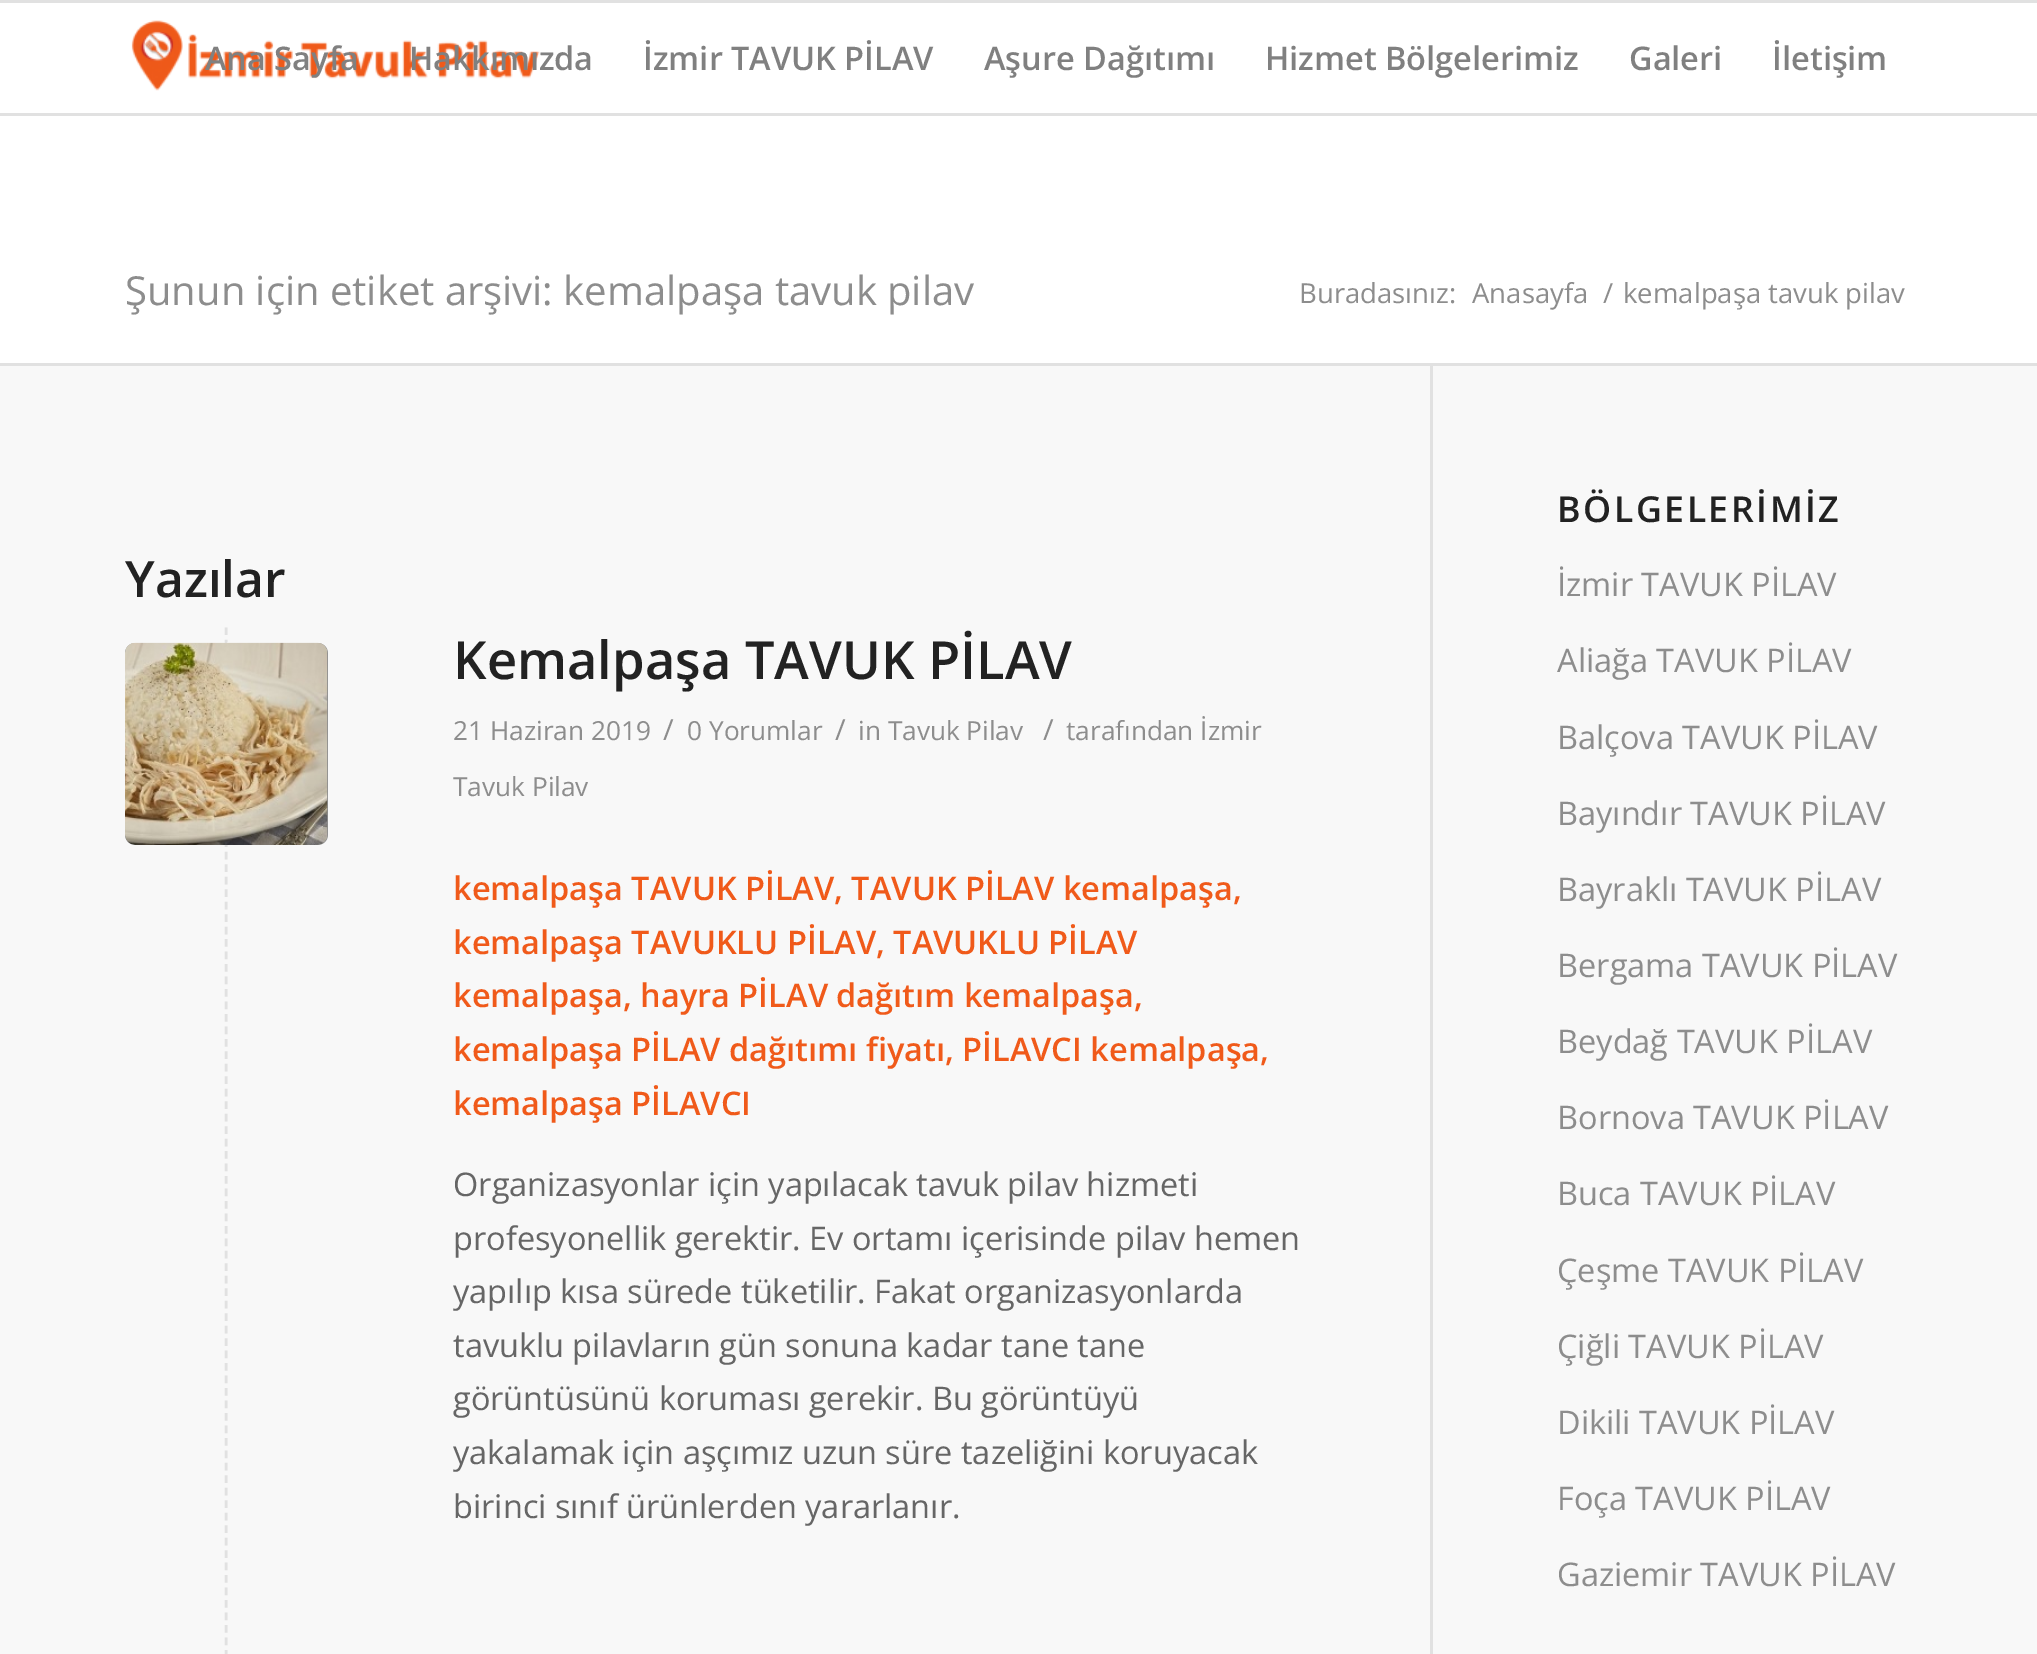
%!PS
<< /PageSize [2037 1654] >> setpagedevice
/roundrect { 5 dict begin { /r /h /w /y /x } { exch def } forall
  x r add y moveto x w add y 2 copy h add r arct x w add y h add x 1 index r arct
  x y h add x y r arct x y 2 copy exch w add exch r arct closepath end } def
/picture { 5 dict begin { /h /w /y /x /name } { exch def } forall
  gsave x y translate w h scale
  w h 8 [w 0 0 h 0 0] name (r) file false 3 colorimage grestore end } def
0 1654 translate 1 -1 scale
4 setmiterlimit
1 setgray
0 0 2037 1654 rectfill
0.882 setgray
0 0 2037 3 rectfill
0 113 2037 3 rectfill
(img1.rgb) 131 20 409 71 picture
/OpenSans-SemiBold [32.5 0 0 -32.5 0 0] selectfont
0.502 setgray
205 70 moveto (Ana Sayfa) show
409 70 moveto (Hakkımızda) show
643 70 moveto (İzmir TAVUK PİLAV) show
984 70 moveto (Aşure Dağıtımı) show
1265 70 moveto (Hizmet Bölgelerimiz) show
1629 70 moveto (Galeri) show
1772 70 moveto (İletişim) show
/OpenSans-Regular [40 0 0 -40 0 0] selectfont
0.553 setgray
125 305 moveto (Şunun için etiket arşivi: kemalpaşa tavuk pilav) show
/OpenSans-Regular [27.5 0 0 -27.5 0 0] selectfont
1299 303 moveto (Buradasınız:) show
1472 303 moveto (Anasayfa) show
1603 303 moveto (/) show
1623 303 moveto (kemalpaşa tavuk pilav) show
0.973 setgray
0 366 2037 1288 rectfill
0.882 setgray
0 363 2037 3 rectfill
1430 365 3 1289 rectfill
/OpenSans-SemiBold [50 0 0 -50 0 0] selectfont
0.133 setgray
125 597 moveto (Yazılar) show
0.882 setgray
2.5 setlinewidth
[7.5 4.97] 0 setdash
newpath 226 627.5 moveto 226 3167.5 lineto stroke
/OpenSans-SemiBold [52.5 0 0 -52.5 0 0] selectfont
0.133 setgray
453 679 moveto (Kemalpaşa TAVUK PİLAV) show
/OpenSans-Regular [26.25 0 0 -26.25 0 0] selectfont
0.553 setgray
453 740 moveto (21 Haziran 2019) show
/OpenSans-Regular [29 0 0 -29 0 0] selectfont
663 740 moveto (/) show
/OpenSans-Regular [26.25 0 0 -26.25 0 0] selectfont
687 740 moveto (0 Yorumlar) show
/OpenSans-Regular [29 0 0 -29 0 0] selectfont
835 740 moveto (/) show
/OpenSans-Regular [26.25 0 0 -26.25 0 0] selectfont
858 740 moveto (in Tavuk Pilav) show
/OpenSans-Regular [29 0 0 -29 0 0] selectfont
1043 740 moveto (/) show
/OpenSans-Regular [26.25 0 0 -26.25 0 0] selectfont
1066 740 moveto (tarafından İzmir) show
453 796 moveto (Tavuk Pilav) show
/OpenSans-SemiBold [32.5 0 0 -32.5 0 0] selectfont
0.941 0.353 0.102 setrgbcolor
453 900 moveto (kemalpaşa TAVUK PİLAV, TAVUK PİLAV kemalpaşa,) show
453 954 moveto (kemalpaşa TAVUKLU PİLAV, TAVUKLU PİLAV) show
453 1007 moveto (kemalpaşa, hayra PİLAV dağıtım kemalpaşa,) show
453 1061 moveto (kemalpaşa PİLAV dağıtımı fiyatı, PİLAVCI kemalpaşa,) show
453 1115 moveto (kemalpaşa PİLAVCI) show
/OpenSans-Regular [32.5 0 0 -32.5 0 0] selectfont
0.4 setgray
453 1196 moveto (Organizasyonlar için yapılacak tavuk pilav hizmeti) show
453 1250 moveto (profesyonellik gerektir. Ev ortamı içerisinde pilav hemen) show
gsave
453 628 977 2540 rectclip
453 1303 moveto (yapılıp kısa sürede tüketilir. Fakat organizasyonlarda) show
grestore
453 1357 moveto (tavuklu pilavların gün sonuna kadar tane tane) show
453 1410 moveto (görüntüsünü koruması gerekir. Bu görüntüyü) show
gsave
453 628 977 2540 rectclip
453 1464 moveto (yakalamak için aşçımız uzun süre tazeliğini koruyacak) show
grestore
453 1518 moveto (birinci sınıf ürünlerden yararlanır.) show
0.553 setgray
125 643 203 202 10 roundrect fill
(img2.rgb) 125 642 203 203 picture
/OpenSans-SemiBold [35.75 0 0 -35.75 0 0] selectfont
0.133 setgray
1557 522 moveto 2.5 0 (BÖLGELERİMİZ) ashow
/OpenSans-Regular [32.5 0 0 -32.5 0 0] selectfont
0.553 setgray
1557 596 moveto (İzmir TAVUK PİLAV) show
1557 672 moveto (Aliağa TAVUK PİLAV) show
1557 749 moveto (Balçova TAVUK PİLAV) show
1557 825 moveto (Bayındır TAVUK PİLAV) show
1557 901 moveto (Bayraklı TAVUK PİLAV) show
1557 977 moveto (Bergama TAVUK PİLAV) show
1557 1053 moveto (Beydağ TAVUK PİLAV) show
1557 1129 moveto (Bornova TAVUK PİLAV) show
1557 1205 moveto (Buca TAVUK PİLAV) show
1557 1282 moveto (Çeşme TAVUK PİLAV) show
1557 1358 moveto (Çiğli TAVUK PİLAV) show
1557 1434 moveto (Dikili TAVUK PİLAV) show
1557 1510 moveto (Foça TAVUK PİLAV) show
1557 1586 moveto (Gaziemir TAVUK PİLAV) show
showpage
